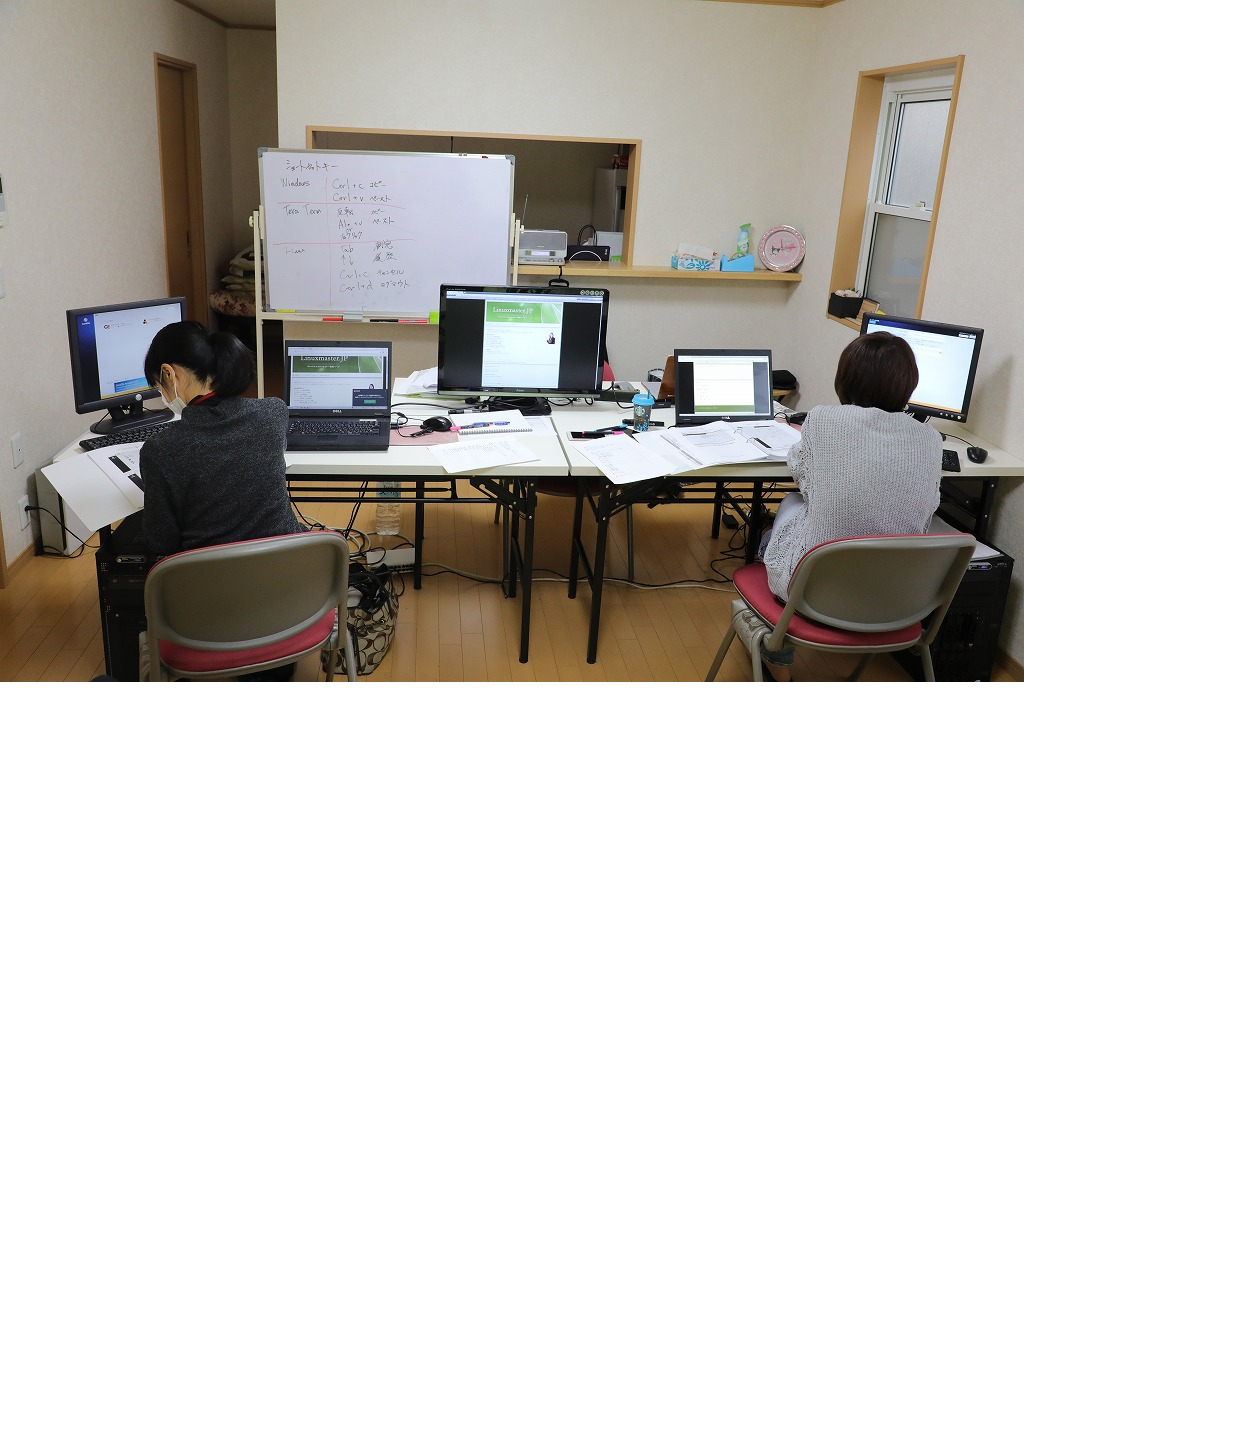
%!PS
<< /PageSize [1258 1445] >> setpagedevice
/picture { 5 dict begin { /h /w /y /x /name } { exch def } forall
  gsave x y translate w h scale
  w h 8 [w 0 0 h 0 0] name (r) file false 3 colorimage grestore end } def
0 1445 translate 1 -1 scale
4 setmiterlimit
1 setgray
0 0 1258 1445 rectfill
(img1.rgb) 0 0 1024 682 picture
showpage
